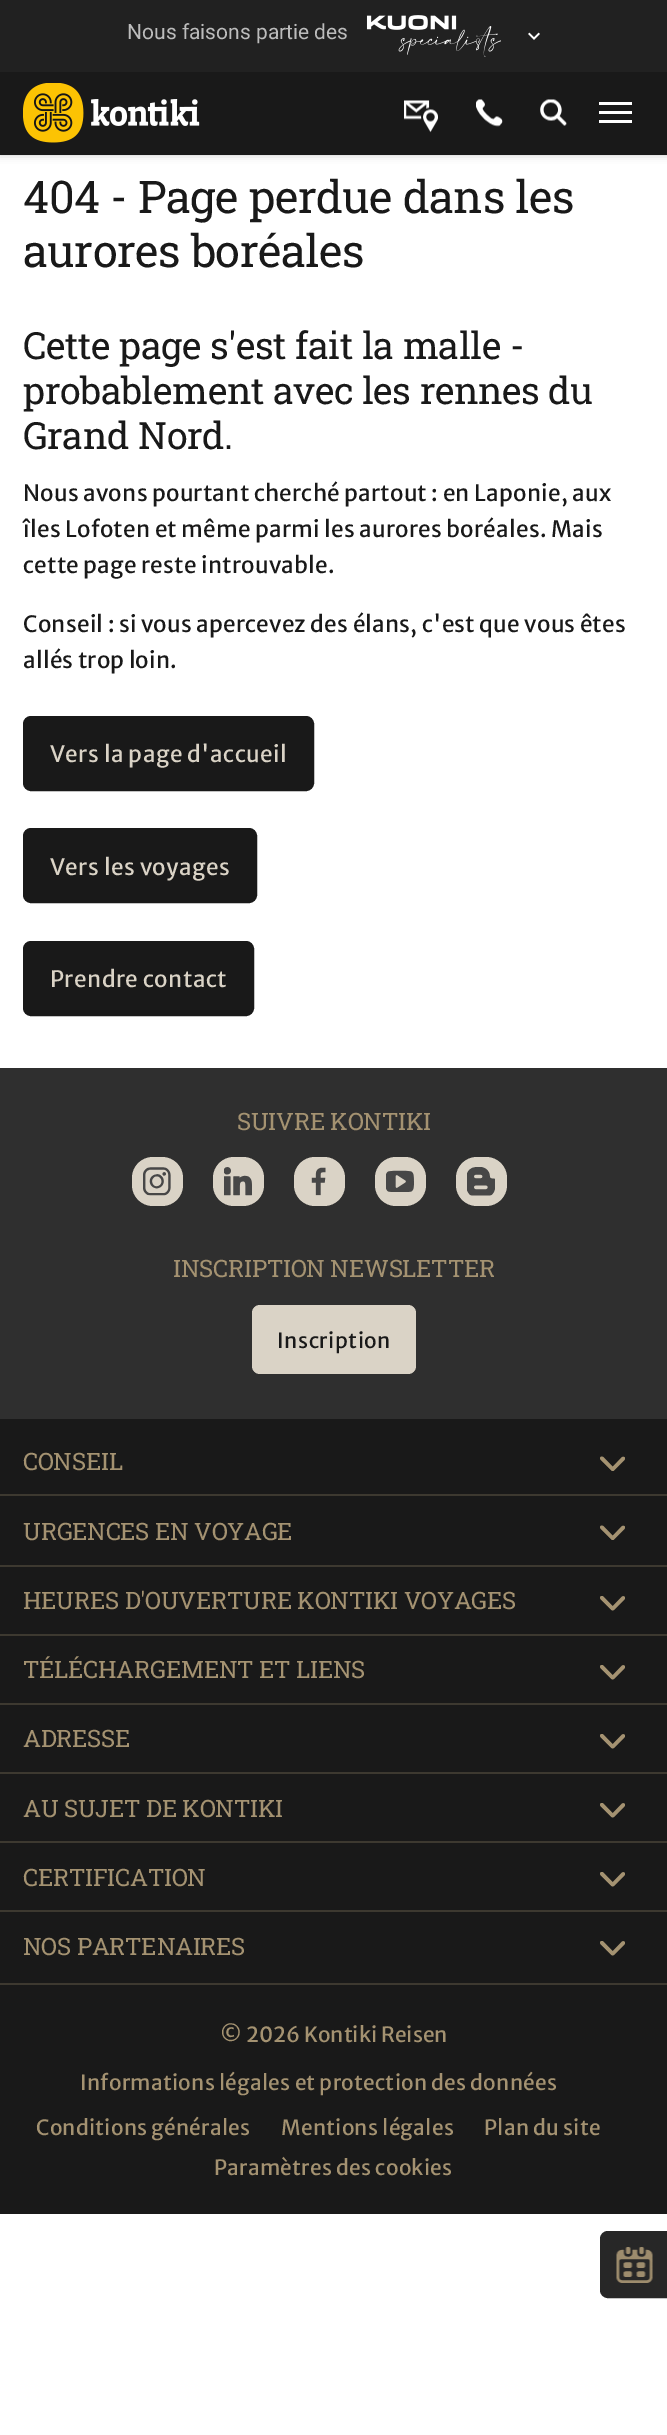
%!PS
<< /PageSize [667 2435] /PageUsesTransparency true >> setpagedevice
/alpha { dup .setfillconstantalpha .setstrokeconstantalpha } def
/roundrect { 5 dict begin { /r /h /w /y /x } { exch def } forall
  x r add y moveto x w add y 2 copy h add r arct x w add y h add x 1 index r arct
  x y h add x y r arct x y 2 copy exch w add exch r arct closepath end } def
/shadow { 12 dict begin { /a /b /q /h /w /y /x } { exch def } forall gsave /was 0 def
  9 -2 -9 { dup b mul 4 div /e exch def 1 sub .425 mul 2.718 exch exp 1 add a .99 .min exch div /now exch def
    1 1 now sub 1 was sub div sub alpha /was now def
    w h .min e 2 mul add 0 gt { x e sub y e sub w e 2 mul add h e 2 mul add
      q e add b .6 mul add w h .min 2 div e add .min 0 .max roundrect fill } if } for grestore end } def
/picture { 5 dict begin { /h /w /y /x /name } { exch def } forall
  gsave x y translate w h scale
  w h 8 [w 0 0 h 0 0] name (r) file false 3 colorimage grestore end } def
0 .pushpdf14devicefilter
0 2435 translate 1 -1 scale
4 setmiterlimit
1 setgray
0 0 667 2435 rectfill
0 setgray
0 72 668 83 0 4 0.2 shadow
0.129 setgray
0 0 667 72 rectfill
/Roboto-Regular [21 0 0 -21 0 0] selectfont
0.737 setgray
127 39 moveto (Nous faisons partie des) show
(img1.rgb) 366 15 135 42 picture
(img2.rgb) 528 32 12 8 picture
0.098 setgray
0 72 667 83 rectfill
(img3.rgb) 23 83 177 60 picture
(img4.rgb) 404 100 34 33 picture
(img5.rgb) 476 99 27 28 picture
(img6.rgb) 540 99 27 27 picture
1 setgray
599 111 33 3 rectfill
599 102 33 3 rectfill
599 120 33 3 rectfill
/RobotoSlab-Regular [45 0 0 -45 0 0] selectfont
0.098 setgray
23 213 moveto -0.45 0 (404 - Page perdue dans les) ashow
23 267 moveto -0.45 0 (aurores boréales) ashow
/RobotoSlab-Regular [37.5 0 0 -37.5 0 0] selectfont
23 359 moveto -0.4 0 (Cette page s'est fait la malle -) ashow
23 404 moveto -0.4 0 (probablement avec les rennes du) ashow
23 449 moveto -0.4 0 (Grand Nord.) ashow
/MerriweatherSans-Regular [22.5 0 0 -22.5 0 0] selectfont
23 501 moveto 0.22 0 (Nous avons pourtant cherché partout : en Laponie, aux) ashow
23 537 moveto 0.22 0 (îles Lofoten et même parmi les aurores boréales. Mais) ashow
23 573 moveto 0.22 0 (cette page reste introuvable.) ashow
23 632 moveto 0.22 0 (Conseil : si vous apercevez des élans, c'est que vous êtes) ashow
23 668 moveto 0.22 0 (allés trop loin.) ashow
24 717 289 73 7 roundrect gsave fill grestore
2 setlinewidth
stroke
0.855 0.827 0.776 setrgbcolor
50 762 moveto 0.45 0 (Vers la page d'accueil) ashow
0.098 setgray
24 829 232 73 7 roundrect gsave fill grestore
stroke
0.855 0.827 0.776 setrgbcolor
50 875 moveto 0.45 0 (Vers les voyages) ashow
0.098 setgray
24 942 229 73 7 roundrect gsave fill grestore
stroke
0.855 0.827 0.776 setrgbcolor
50 987 moveto 0.45 0 (Prendre contact) ashow
0.184 setgray
0 1068 667 351 rectfill
/RobotoSlab-Regular [24 0 0 -24 0 0] selectfont
0.643 0.573 0.443 setrgbcolor
237 1130 moveto -0.25 0 (SUIVRE KONTIKI) ashow
0.855 0.827 0.776 setrgbcolor
132 1157 51 49 21 roundrect fill
(img7.rgb) 143 1167 28 29 picture
213 1157 51 49 21 roundrect fill
(img8.rgb) 224 1167 28 29 picture
294 1157 51 49 21 roundrect fill
(img9.rgb) 311 1167 15 29 picture
375 1157 51 49 21 roundrect fill
(img10.rgb) 386 1170 28 22 picture
456 1157 51 49 21 roundrect fill
(img11.rgb) 467 1167 28 29 picture
0.643 0.573 0.443 setrgbcolor
173 1277 moveto -0.25 0 (INSCRIPTION NEWSLETTER) ashow
0.855 0.827 0.776 setrgbcolor
252 1305 164 69 8 roundrect fill
/MerriweatherSans-Regular [21 0 0 -21 0 0] selectfont
0.098 setgray
277 1348 moveto 0.5 0 (Inscription) ashow
0 1419 667 795 rectfill
/RobotoSlab-Regular [24 0 0 -24 0 0] selectfont
0.643 0.573 0.443 setrgbcolor
23 1470 moveto -0.25 0 (CONSEIL) ashow
(img12.rgb) 600 1456 25 15 picture
0.239 0.224 0.188 setrgbcolor
0 1494 667 2 rectfill
0.643 0.573 0.443 setrgbcolor
23 1540 moveto -0.25 0 (URGENCES EN VOYAGE) ashow
(img12.rgb) 600 1525 25 15 picture
0.239 0.224 0.188 setrgbcolor
0 1565 667 2 rectfill
0.643 0.573 0.443 setrgbcolor
23 1609 moveto -0.25 0 (HEURES D'OUVERTURE KONTIKI VOYAGES) ashow
(img13.rgb) 600 1596 25 15 picture
0.239 0.224 0.188 setrgbcolor
0 1634 667 2 rectfill
0.643 0.573 0.443 setrgbcolor
23 1678 moveto -0.25 0 (TÉLÉCHARGEMENT ET LIENS) ashow
(img13.rgb) 600 1665 25 15 picture
0.239 0.224 0.188 setrgbcolor
0 1703 667 2 rectfill
0.643 0.573 0.443 setrgbcolor
23 1747 moveto -0.25 0 (ADRESSE) ashow
(img13.rgb) 600 1734 25 15 picture
0.239 0.224 0.188 setrgbcolor
0 1772 667 2 rectfill
0.643 0.573 0.443 setrgbcolor
23 1817 moveto -0.25 0 (AU SUJET DE KONTIKI) ashow
(img13.rgb) 600 1803 25 15 picture
0.239 0.224 0.188 setrgbcolor
0 1841 667 2 rectfill
0.643 0.573 0.443 setrgbcolor
23 1886 moveto -0.25 0 (CERTIFICATION) ashow
(img13.rgb) 600 1872 25 15 picture
0.239 0.224 0.188 setrgbcolor
0 1910 667 2 rectfill
0.643 0.573 0.443 setrgbcolor
23 1955 moveto -0.25 0 (NOS PARTENAIRES) ashow
(img13.rgb) 600 1941 25 15 picture
0.239 0.224 0.188 setrgbcolor
0 1983 667 2 rectfill
/MerriweatherSans-Regular [21 0 0 -21 0 0] selectfont
0.643 0.573 0.443 setrgbcolor
220 2042 moveto (© 2026 Kontiki Reisen) show
80 2090 moveto 0.2 0 (Informations légales et protection des données) ashow
36 2135 moveto 0.2 0 (Conditions générales) ashow
281 2135 moveto 0.2 0 (Mentions légales) ashow
484 2135 moveto 0.2 0 (Plan du site) ashow
214 2175 moveto 0.2 0 (Paramètres des cookies) ashow
0.153 setgray
newpath 608 2232 moveto 667 2232 lineto 667 2297 lineto 608 2297 lineto 604 2297 601 2294 601 2290 curveto 601 2239 lineto 601 2235 604 2232 608 2232 curveto closepath gsave fill grestore
stroke
(img14.rgb) 616 2247 37 36 picture
.poppdf14devicefilter showpage
